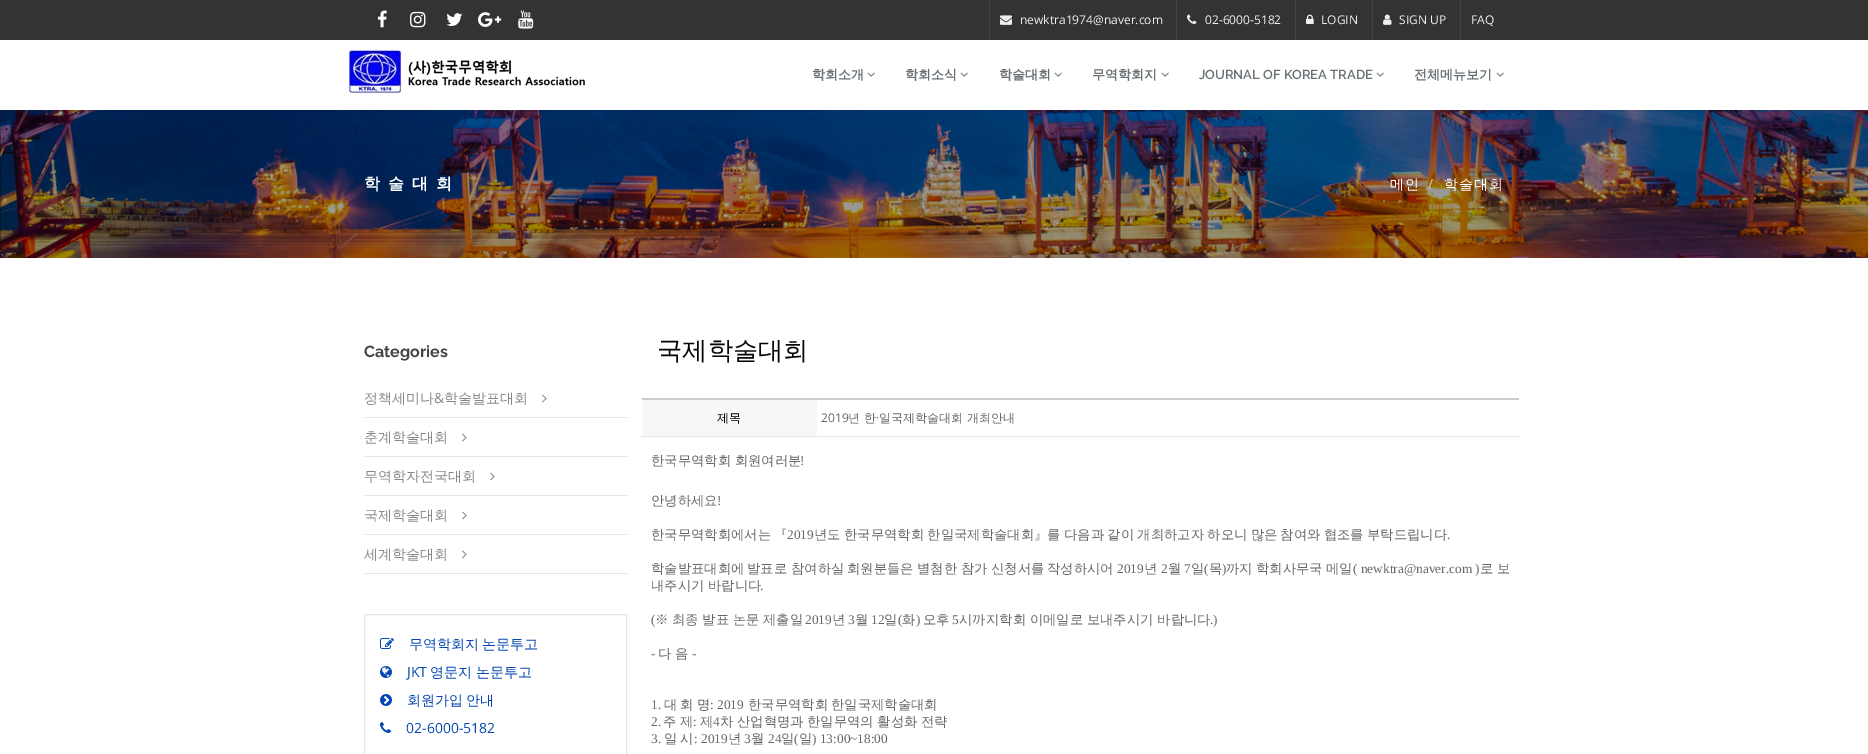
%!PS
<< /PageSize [1868 754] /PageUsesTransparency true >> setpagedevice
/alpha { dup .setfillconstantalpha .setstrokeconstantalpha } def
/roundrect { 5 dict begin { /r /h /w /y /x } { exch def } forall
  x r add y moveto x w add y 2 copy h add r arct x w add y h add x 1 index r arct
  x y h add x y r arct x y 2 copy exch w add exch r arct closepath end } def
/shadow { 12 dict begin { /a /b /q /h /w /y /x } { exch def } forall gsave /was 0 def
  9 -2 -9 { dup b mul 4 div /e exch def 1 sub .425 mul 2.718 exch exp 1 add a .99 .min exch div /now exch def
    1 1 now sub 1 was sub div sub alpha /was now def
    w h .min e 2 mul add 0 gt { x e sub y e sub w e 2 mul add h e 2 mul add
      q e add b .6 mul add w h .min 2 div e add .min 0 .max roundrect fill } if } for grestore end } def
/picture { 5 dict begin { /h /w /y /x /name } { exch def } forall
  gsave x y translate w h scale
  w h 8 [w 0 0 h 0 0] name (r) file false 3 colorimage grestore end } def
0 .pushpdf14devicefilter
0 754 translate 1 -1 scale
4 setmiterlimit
1 setgray
0 0 1868 754 rectfill
0.2 setgray
0 0 1868 40 rectfill
(img1.rgb) 377 10 10 18 picture
(img2.rgb) 410 11 16 17 picture
(img3.rgb) 446 13 17 13 picture
(img4.rgb) 478 12 24 15 picture
(img5.rgb) 518 10 16 19 picture
0.267 setgray
989 0 1 40 rectfill
(img6.rgb) 1000 15 12 10 picture
/OpenSans-Regular [12 0 0 -12 0 0] selectfont
0.933 setgray
1020 24 moveto (newktra1974@naver.com) show
0.267 setgray
1176 0 1 40 rectfill
(img7.rgb) 1187 14 10 10 picture
0.933 setgray
1205 24 moveto (02-6000-5182) show
0.267 setgray
1295 0 1 40 rectfill
(img8.rgb) 1306 14 8 10 picture
0.933 setgray
1321 24 moveto (LOGIN) show
0.267 setgray
1372 0 1 40 rectfill
(img9.rgb) 1383 14 9 11 picture
0.933 setgray
1399 24 moveto (SIGN UP) show
0.267 setgray
1460 0 1 40 rectfill
0.933 setgray
1471 24 moveto (FAQ) show
(img12.rgb) 0 110 1868 148 picture
gsave
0 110 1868 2 rectclip
0 setgray
0 41 1868 70 0 1.5 0.12 shadow
grestore
(img10.rgb) 349 50 236 44 picture
/WenQuanYiZenHei-Bold [13 0 0 -13 0 0] selectfont
0.408 0.439 0.455 setrgbcolor
812 79 moveto (학회소개) show
(img11.rgb) 867 72 8 5 picture
905 79 moveto (학회소식) show
(img11.rgb) 960 72 8 5 picture
999 79 moveto (학술대회) show
(img11.rgb) 1054 72 8 5 picture
1092 79 moveto (무역학회지) show
(img11.rgb) 1161 72 8 5 picture
/Raleway-SemiBold [13 0 0 -13 0 0] selectfont
1199 79 moveto (JOURNAL OF KOREA TRADE) show
(img11.rgb) 1376 72 8 5 picture
/WenQuanYiZenHei-Bold [13 0 0 -13 0 0] selectfont
1414 79 moveto (전체메뉴보기) show
(img11.rgb) 1496 72 8 5 picture
/WenQuanYiZenHei-Bold [16 0 0 -16 0 0] selectfont
1 setgray
364 189 moveto 8 0 (학술대회) ashow
/WenQuanYiZenHei-Medium [14 0 0 -14 0 0] selectfont
1390 189 moveto 1 0 (메인) ashow
/OpenSans-Regular [14 0 0 -14 0 0] selectfont
0.8 setgray
1428 189 moveto 1 0 (/) ashow
/WenQuanYiZenHei-Medium [14 0 0 -14 0 0] selectfont
1 setgray
1444 189 moveto 1 0 (학술대회) ashow
/Raleway-Bold [16 0 0 -16 0 0] selectfont
0.267 setgray
364 357 moveto (Categories) show
0.898 setgray
364 417 263 1 rectfill
/WenQuanYiZenHei-Medium [14 0 0 -14 0 0] selectfont
0.533 setgray
364 403 moveto (정책세미나) show
/OpenSans-Regular [14 0 0 -14 0 0] selectfont
434 403 moveto (&) show
/WenQuanYiZenHei-Medium [14 0 0 -14 0 0] selectfont
444 403 moveto (학술발표대회) show
(img13.rgb) 542 394 5 9 picture
0.898 setgray
364 456 263 1 rectfill
0.533 setgray
364 442 moveto (춘계학술대회) show
(img13.rgb) 462 433 5 9 picture
0.898 setgray
364 495 263 1 rectfill
0.533 setgray
364 481 moveto (무역학자전국대회) show
(img13.rgb) 490 472 5 9 picture
0.898 setgray
364 534 263 1 rectfill
0.533 setgray
364 520 moveto (국제학술대회) show
(img13.rgb) 462 511 5 9 picture
0.898 setgray
364 573 263 1 rectfill
0.533 setgray
364 559 moveto (세계학술대회) show
(img13.rgb) 462 550 5 9 picture
0.898 setgray
364.5 614.5 262 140 rectstroke
(img14.rgb) 380 638 14 11 picture
0.02 0.275 0.698 setrgbcolor
409 649 moveto -1 0 32 (무역학회지 논문투고) widthshow
(img15.rgb) 380 666 12 12 picture
/OpenSans-Regular [14 0 0 -14 0 0] selectfont
407 677 moveto (JKT) show
/WenQuanYiZenHei-Medium [14 0 0 -14 0 0] selectfont
430 677 moveto (영문지 논문투고) show
(img16.rgb) 380 694 12 12 picture
407 705 moveto -1 0 32 (회원가입 안내) widthshow
(img17.rgb) 380 722 11 11 picture
/OpenSans-Regular [14 0 0 -14 0 0] selectfont
406 733 moveto (02-6000-5182) show
/WenQuanYiZenHei-Medium [25.25 0 0 -25.25 0 0] selectfont
0.024 setgray
657 359 moveto (국제학술대회) show
0.8 setgray
642 398 877 2 rectfill
0.969 setgray
642 400 175 36 rectfill
/WenQuanYiZenHei-Medium [12 0 0 -12 0 0] selectfont
0 setgray
717 422 moveto (제목) show
0.898 setgray
641 436 879 1 rectfill
/OpenSans-Regular [12 0 0 -12 0 0] selectfont
0.4 setgray
821 422 moveto (2019) show
/WenQuanYiZenHei-Medium [12 0 0 -12 0 0] selectfont
848 422 moveto (년 한) show
/OpenSans-Regular [12 0 0 -12 0 0] selectfont
876 422 moveto (·) show
/WenQuanYiZenHei-Medium [12 0 0 -12 0 0] selectfont
879 422 moveto (일국제학술대회 개최안내) show
/WenQuanYiZenHei-Medium [13.35 0 0 -13.35 0 0] selectfont
651 465 moveto -0.5 0 32 (한국무역학회 회원여러분) widthshow
/LiberationSerif-Regular [13.35 0 0 -13.35 0 0] selectfont
800 465 moveto (!) show
/WenQuanYiZenHei-Medium [13.35 0 0 -13.35 0 0] selectfont
651 505 moveto (안녕하세요) show
/LiberationSerif-Regular [13.35 0 0 -13.35 0 0] selectfont
717 505 moveto (!) show
/WenQuanYiZenHei-Medium [13.35 0 0 -13.35 0 0] selectfont
651 539 moveto -0.75 0 32 (한국무역학회에서는 『) widthshow
/LiberationSerif-Regular [13.35 0 0 -13.35 0 0] selectfont
787 539 moveto (2019) show
/WenQuanYiZenHei-Medium [13.35 0 0 -13.35 0 0] selectfont
814 539 moveto -0.75 0 32 (년도 한국무역학회 한일국제학술대회』를 다음과 같이 개최하고자 하오니 많은 참여와 협조를 부탁드립니다) widthshow
/LiberationSerif-Regular [13.35 0 0 -13.35 0 0] selectfont
1447 539 moveto (.) show
/WenQuanYiZenHei-Medium [13.35 0 0 -13.35 0 0] selectfont
651 573 moveto (학술발표대회에) show
747 573 moveto (발표로) show
791 573 moveto (참여하실) show
847 573 moveto (회원분들은) show
917 573 moveto (별첨한) show
961 573 moveto (참가) show
991 573 moveto (신청서를) show
1047 573 moveto (작성하시어) show
/LiberationSerif-Regular [13.35 0 0 -13.35 0 0] selectfont
1117 573 moveto (2019) show
/WenQuanYiZenHei-Medium [13.35 0 0 -13.35 0 0] selectfont
1144 573 moveto (년) show
/LiberationSerif-Regular [13.35 0 0 -13.35 0 0] selectfont
1161 573 moveto (2) show
/WenQuanYiZenHei-Medium [13.35 0 0 -13.35 0 0] selectfont
1168 573 moveto (월) show
/LiberationSerif-Regular [13.35 0 0 -13.35 0 0] selectfont
1184 573 moveto (7) show
/WenQuanYiZenHei-Medium [13.35 0 0 -13.35 0 0] selectfont
1191 573 moveto (일) show
/LiberationSerif-Regular [13.35 0 0 -13.35 0 0] selectfont
1204 573 moveto (\() show
/WenQuanYiZenHei-Medium [13.35 0 0 -13.35 0 0] selectfont
1209 573 moveto (목) show
/LiberationSerif-Regular [13.35 0 0 -13.35 0 0] selectfont
1222 573 moveto (\)) show
/WenQuanYiZenHei-Medium [13.35 0 0 -13.35 0 0] selectfont
1226 573 moveto (까지) show
1256 573 moveto (학회사무국) show
1326 573 moveto (메일) show
/LiberationSerif-Regular [13.35 0 0 -13.35 0 0] selectfont
1353 573 moveto (\( newktra@naver.com \)) show
/WenQuanYiZenHei-Medium [13.35 0 0 -13.35 0 0] selectfont
1480 573 moveto (로) show
1497 573 moveto (보) show
651 590 moveto -0.5 0 32 (내주시기 바랍니다) widthshow
/LiberationSerif-Regular [13.35 0 0 -13.35 0 0] selectfont
760 590 moveto (.) show
651 624 moveto 0.05 0 (\() ashow
/WenQuanYiZenHei-Medium [13.35 0 0 -13.35 0 0] selectfont
655 624 moveto -0.5 0 32 0.05 0 (※ 최종 발표 논문 제출일) awidthshow
/LiberationSerif-Regular [13.35 0 0 -13.35 0 0] selectfont
805 624 moveto 0.05 0 (2019) ashow
/WenQuanYiZenHei-Medium [13.35 0 0 -13.35 0 0] selectfont
832 624 moveto 0.05 0 (년) ashow
/LiberationSerif-Regular [13.35 0 0 -13.35 0 0] selectfont
848 624 moveto 0.05 0 (3) ashow
/WenQuanYiZenHei-Medium [13.35 0 0 -13.35 0 0] selectfont
855 624 moveto 0.05 0 (월) ashow
/LiberationSerif-Regular [13.35 0 0 -13.35 0 0] selectfont
871 624 moveto 0.05 0 (12) ashow
/WenQuanYiZenHei-Medium [13.35 0 0 -13.35 0 0] selectfont
884 624 moveto 0.05 0 (일) ashow
/LiberationSerif-Regular [13.35 0 0 -13.35 0 0] selectfont
898 624 moveto 0.05 0 (\() ashow
/WenQuanYiZenHei-Medium [13.35 0 0 -13.35 0 0] selectfont
902 624 moveto 0.05 0 (화) ashow
/LiberationSerif-Regular [13.35 0 0 -13.35 0 0] selectfont
916 624 moveto 0.05 0 (\)) ashow
/WenQuanYiZenHei-Medium [13.35 0 0 -13.35 0 0] selectfont
923 624 moveto 0.05 0 (오후) ashow
/LiberationSerif-Regular [13.35 0 0 -13.35 0 0] selectfont
952 624 moveto 0.05 0 (5) ashow
/WenQuanYiZenHei-Medium [13.35 0 0 -13.35 0 0] selectfont
959 624 moveto -0.5 0 32 0.05 0 (시까지학회 이메일로 보내주시기 바랍니다) awidthshow
/LiberationSerif-Regular [13.35 0 0 -13.35 0 0] selectfont
1210 624 moveto 0.05 0 (.\)) ashow
651 658 moveto (-) show
/WenQuanYiZenHei-Medium [13.35 0 0 -13.35 0 0] selectfont
658 658 moveto (다 음) show
/LiberationSerif-Regular [13.35 0 0 -13.35 0 0] selectfont
692 658 moveto (-) show
651 709 moveto (1.) show
/WenQuanYiZenHei-Medium [13.35 0 0 -13.35 0 0] selectfont
664 709 moveto (대) show
680 709 moveto (회) show
697 709 moveto (명) show
/LiberationSerif-Regular [13.35 0 0 -13.35 0 0] selectfont
710 709 moveto (: 2019) show
/WenQuanYiZenHei-Medium [13.35 0 0 -13.35 0 0] selectfont
748 709 moveto (한국무역학회) show
831 709 moveto (한일국제학술대회) show
/LiberationSerif-Regular [13.35 0 0 -13.35 0 0] selectfont
651 726 moveto (2.) show
/WenQuanYiZenHei-Medium [13.35 0 0 -13.35 0 0] selectfont
663 726 moveto -0.5 0 32 (주 제) widthshow
/LiberationSerif-Regular [13.35 0 0 -13.35 0 0] selectfont
693 726 moveto (:) show
/WenQuanYiZenHei-Medium [13.35 0 0 -13.35 0 0] selectfont
700 726 moveto (제) show
/LiberationSerif-Regular [13.35 0 0 -13.35 0 0] selectfont
713 726 moveto (4) show
/WenQuanYiZenHei-Medium [13.35 0 0 -13.35 0 0] selectfont
720 726 moveto -0.5 0 32 (차 산업혁명과 한일무역의 활성화 전략) widthshow
/LiberationSerif-Regular [13.35 0 0 -13.35 0 0] selectfont
651 743 moveto (3.) show
/WenQuanYiZenHei-Medium [13.35 0 0 -13.35 0 0] selectfont
664 743 moveto (일) show
680 743 moveto (시) show
/LiberationSerif-Regular [13.35 0 0 -13.35 0 0] selectfont
694 743 moveto (: 2019) show
/WenQuanYiZenHei-Medium [13.35 0 0 -13.35 0 0] selectfont
728 743 moveto (년) show
/LiberationSerif-Regular [13.35 0 0 -13.35 0 0] selectfont
744 743 moveto (3) show
/WenQuanYiZenHei-Medium [13.35 0 0 -13.35 0 0] selectfont
751 743 moveto (월) show
/LiberationSerif-Regular [13.35 0 0 -13.35 0 0] selectfont
768 743 moveto (24) show
/WenQuanYiZenHei-Medium [13.35 0 0 -13.35 0 0] selectfont
781 743 moveto (일) show
/LiberationSerif-Regular [13.35 0 0 -13.35 0 0] selectfont
794 743 moveto (\() show
/WenQuanYiZenHei-Medium [13.35 0 0 -13.35 0 0] selectfont
799 743 moveto (일) show
/LiberationSerif-Regular [13.35 0 0 -13.35 0 0] selectfont
812 743 moveto (\) 13:00~18:00) show
.poppdf14devicefilter showpage
